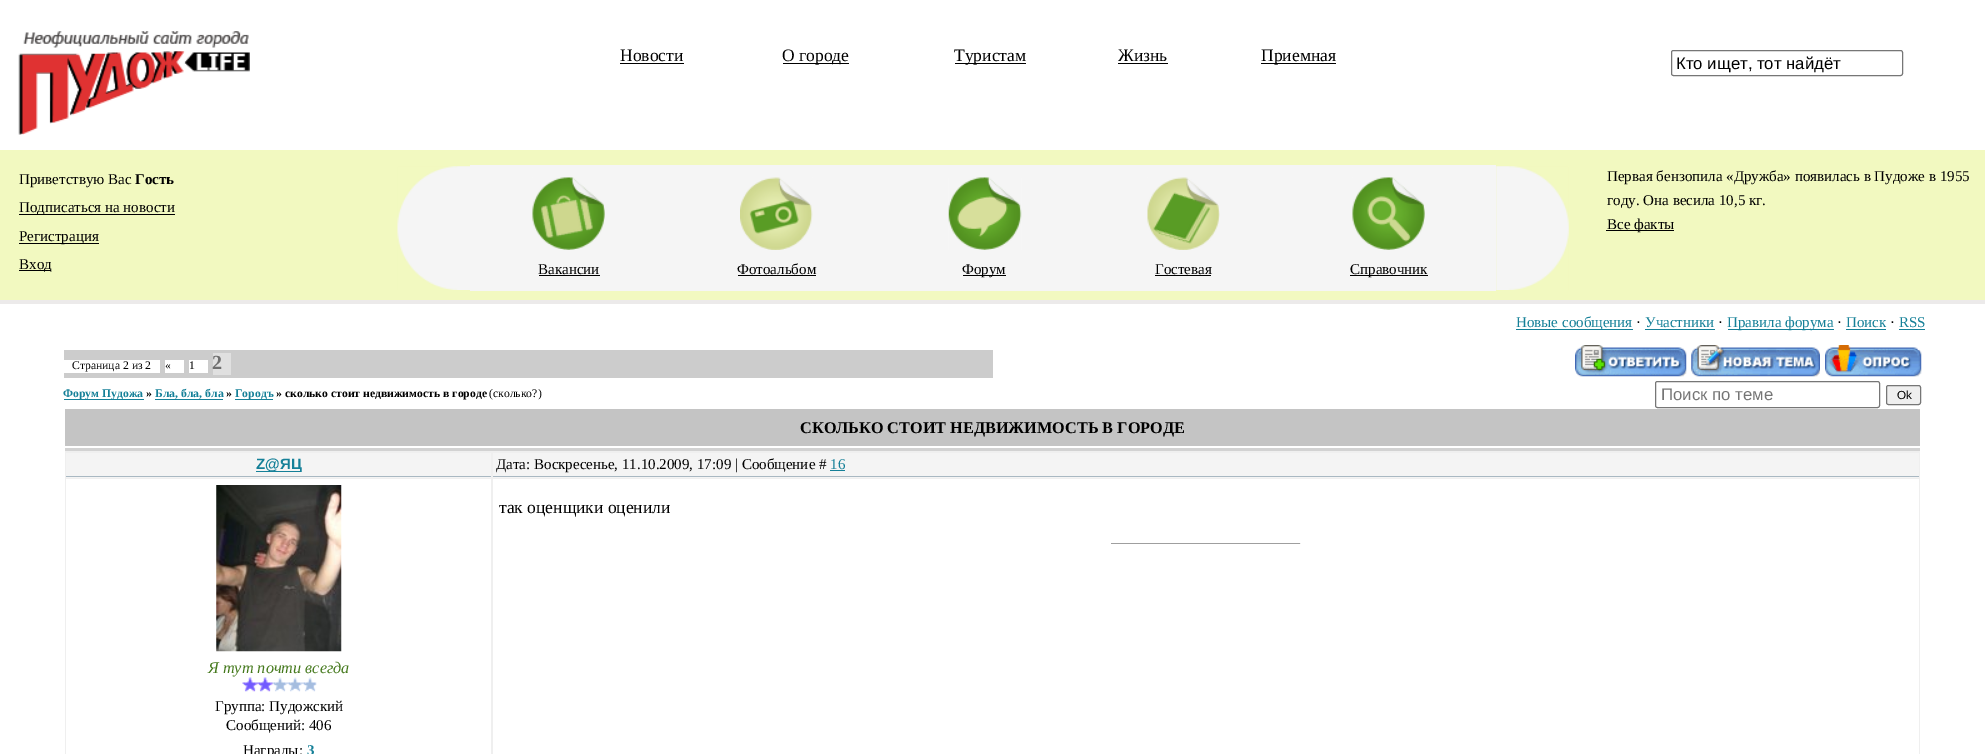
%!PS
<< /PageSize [1985 754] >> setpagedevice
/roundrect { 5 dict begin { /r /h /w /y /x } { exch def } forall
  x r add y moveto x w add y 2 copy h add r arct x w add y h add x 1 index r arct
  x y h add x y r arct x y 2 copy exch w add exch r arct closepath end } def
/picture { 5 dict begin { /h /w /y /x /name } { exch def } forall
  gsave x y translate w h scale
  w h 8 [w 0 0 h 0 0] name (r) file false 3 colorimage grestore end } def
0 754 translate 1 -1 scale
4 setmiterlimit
1 setgray
0 0 1985 754 rectfill
(img1.rgb) 18 31 232 104 picture
/LiberationSerif-Regular [17.5 0 0 -17.5 0 0] selectfont
0 setgray
620 61 moveto (Новости) show
620 63 64 1 rectfill
783 63 66 1 rectfill
782 61 moveto (О городе) show
955 63 71 1 rectfill
954 61 moveto (Туристам) show
1118 61 moveto (Жизнь) show
1118 63 50 1 rectfill
1261 63 75 1 rectfill
1261 61 moveto (Приемная) show
0.463 setgray
1671.5 50.5 231 25 2 roundrect stroke
/LiberationSans-Regular [16.75 0 0 -16.75 0 0] selectfont
0 setgray
1676 69 moveto (Кто ищет, тот найдёт) show
0.949 0.976 0.753 setrgbcolor
1569 150 416 150 rectfill
0.925 0.918 0.918 setrgbcolor
1569 300 416 4 rectfill
0.949 0.976 0.753 setrgbcolor
0 150 1569 150 rectfill
0.925 0.918 0.918 setrgbcolor
0 300 1569 4 rectfill
/LiberationSerif-Regular [15 0 0 -15 0 0] selectfont
0 setgray
19 184 moveto (Приветствую Вас) show
/LiberationSerif-Bold [15 0 0 -15 0 0] selectfont
135 184 moveto (Гость) show
19 214 156 1 rectfill
/LiberationSerif-Regular [15 0 0 -15 0 0] selectfont
19 212 moveto (Подписаться на новости) show
19 243 80 1 rectfill
19 241 moveto (Регистрация) show
19 270 32 1 rectfill
19 269 moveto (Вход) show
(img2.rgb) 397 166 73 124 picture
0.961 setgray
470 165 1026 85 rectfill
(img3.rgb) 532 177 73 73 picture
(img4.rgb) 1496 166 73 124 picture
(img5.rgb) 740 177 73 73 picture
(img6.rgb) 948 177 74 73 picture
(img7.rgb) 1147 177 73 73 picture
(img8.rgb) 1352 177 73 73 picture
470 250 1026 41 rectfill
0 setgray
538 274 moveto (Вакансии) show
539 275 61 1 rectfill
737 274 moveto (Фотоальбом) show
738 275 78 1 rectfill
963 275 43 1 rectfill
962 274 moveto (Форум) show
1155 274 moveto (Гостевая) show
1155 275 56 1 rectfill
1350 275 78 1 rectfill
1350 274 moveto (Справочник) show
1607 181 moveto (Первая бензопила «Дружба» появилась в Пудоже в 1955) show
1607 205 moveto (году. Она весила 10,5 кг.) show
1606 230 68 1 rectfill
1607 229 moveto (Все факты) show
0.082 0.502 0.596 setrgbcolor
1516 329 117 1 rectfill
1516 327 moveto (Новые сообщения) show
0 setgray
1636 327 moveto (·) show
0.082 0.502 0.596 setrgbcolor
1645 327 moveto (Участники) show
1645 329 70 1 rectfill
0 setgray
1718 327 moveto (·) show
0.082 0.502 0.596 setrgbcolor
1728 329 106 1 rectfill
1727 327 moveto (Правила форума) show
0 setgray
1837 327 moveto (·) show
0.082 0.502 0.596 setrgbcolor
1846 327 moveto (Поиск) show
1846 329 40 1 rectfill
0 setgray
1890 327 moveto (·) show
0.082 0.502 0.596 setrgbcolor
1899 327 moveto (RSS) show
1899 329 26 1 rectfill
0.8 setgray
64 350 929 28 rectfill
1 setgray
64 360 96 13 rectfill
/LiberationSerif-Regular [11.7 0 0 -11.7 0 0] selectfont
0 setgray
72 369 moveto (Страница 2 из 2) show
1 setgray
165 360 19 13 rectfill
0 setgray
165 369 moveto («) show
1 setgray
189 360 19 13 rectfill
0 setgray
189 369 moveto (1) show
0.878 setgray
213 353 18 22 rectfill
/LiberationSerif-Bold [20 0 0 -20 0 0] selectfont
0.431 setgray
212 369 moveto (2) show
(img9.rgb) 1575 345 112 32 picture
(img10.rgb) 1691 345 129 32 picture
(img11.rgb) 1825 345 97 32 picture
0.082 0.502 0.596 setrgbcolor
64 399 80 1 rectfill
/LiberationSerif-Bold [11.7 0 0 -11.7 0 0] selectfont
63 397 moveto (Форум Пудожа) show
0 setgray
146 397 moveto (») show
0.082 0.502 0.596 setrgbcolor
155 397 moveto (Бла, бла, бла) show
155 399 68 1 rectfill
0 setgray
226 397 moveto (») show
0.082 0.502 0.596 setrgbcolor
235 399 38 1 rectfill
235 397 moveto (Городъ) show
0 setgray
276 397 moveto (» сколько стоит недвижимость в городе) show
/LiberationSerif-Regular [11.7 0 0 -11.7 0 0] selectfont
489 397 moveto (\(сколько?\)) show
0.463 setgray
1655.5 381.5 224 26 2 roundrect stroke
/LiberationSans-Regular [16.75 0 0 -16.75 0 0] selectfont
0.459 setgray
1661 400 moveto (Поиск по теме) show
0.937 setgray
1886.5 385.5 34 19 2 roundrect gsave fill grestore
0.463 setgray
stroke
/LiberationSans-Regular [11.7 0 0 -11.7 0 0] selectfont
0 setgray
1897 399 moveto (Ok) show
0.769 setgray
65 409 1855 37 rectfill
/LiberationSerif-Bold [16.25 0 0 -16.25 0 0] selectfont
0 setgray
800 433 moveto (СКОЛЬКО СТОИТ НЕДВИЖИМОСТЬ В ГОРОДЕ) show
0.824 setgray
65 448 1855 3 rectfill
0.937 setgray
65 451 1855 303 rectfill
0.957 setgray
66 453 425 25 rectfill
0.663 0.722 0.761 setrgbcolor
66 476 425 1 rectfill
0.082 0.502 0.596 setrgbcolor
256 471 45 1 rectfill
/LiberationSans-Bold [15 0 0 -15 0 0] selectfont
256 469 moveto (Z@ЯЦ) show
0.957 setgray
493 453 1426 25 rectfill
0.663 0.722 0.761 setrgbcolor
493 476 1426 1 rectfill
/LiberationSerif-Regular [15 0 0 -15 0 0] selectfont
0 setgray
496 469 moveto (Дата: Воскресенье, 11.10.2009, 17:09 | Сообщение #) show
0.082 0.502 0.596 setrgbcolor
830 469 moveto (16) show
830 470 15 1 rectfill
1 setgray
493 479 1426 275 rectfill
/LiberationSerif-Regular [17.5 0 0 -17.5 0 0] selectfont
0 setgray
499 513 moveto (так оценщики оценили) show
0.624 setgray
1111 543 190 1 rectfill
0.933 setgray
1300 543 1 1 rectfill
1 setgray
66 479 425 275 rectfill
(img12.rgb) 216 485 126 167 picture
/LiberationSerif-Italic [16.25 0 0 -16.25 0 0] selectfont
0.275 0.478 0.118 setrgbcolor
208 673 moveto (Я тут почти всегда) show
(img13.rgb) 242 677 75 15 picture
/LiberationSerif-Regular [15 0 0 -15 0 0] selectfont
0 setgray
215 711 moveto (Группа: Пудожский) show
226 730 moveto (Сообщений: 406) show
243 755 moveto (Награды:) show
/LiberationSerif-Bold [15 0 0 -15 0 0] selectfont
0.082 0.502 0.596 setrgbcolor
307 755 moveto (3) show
showpage
